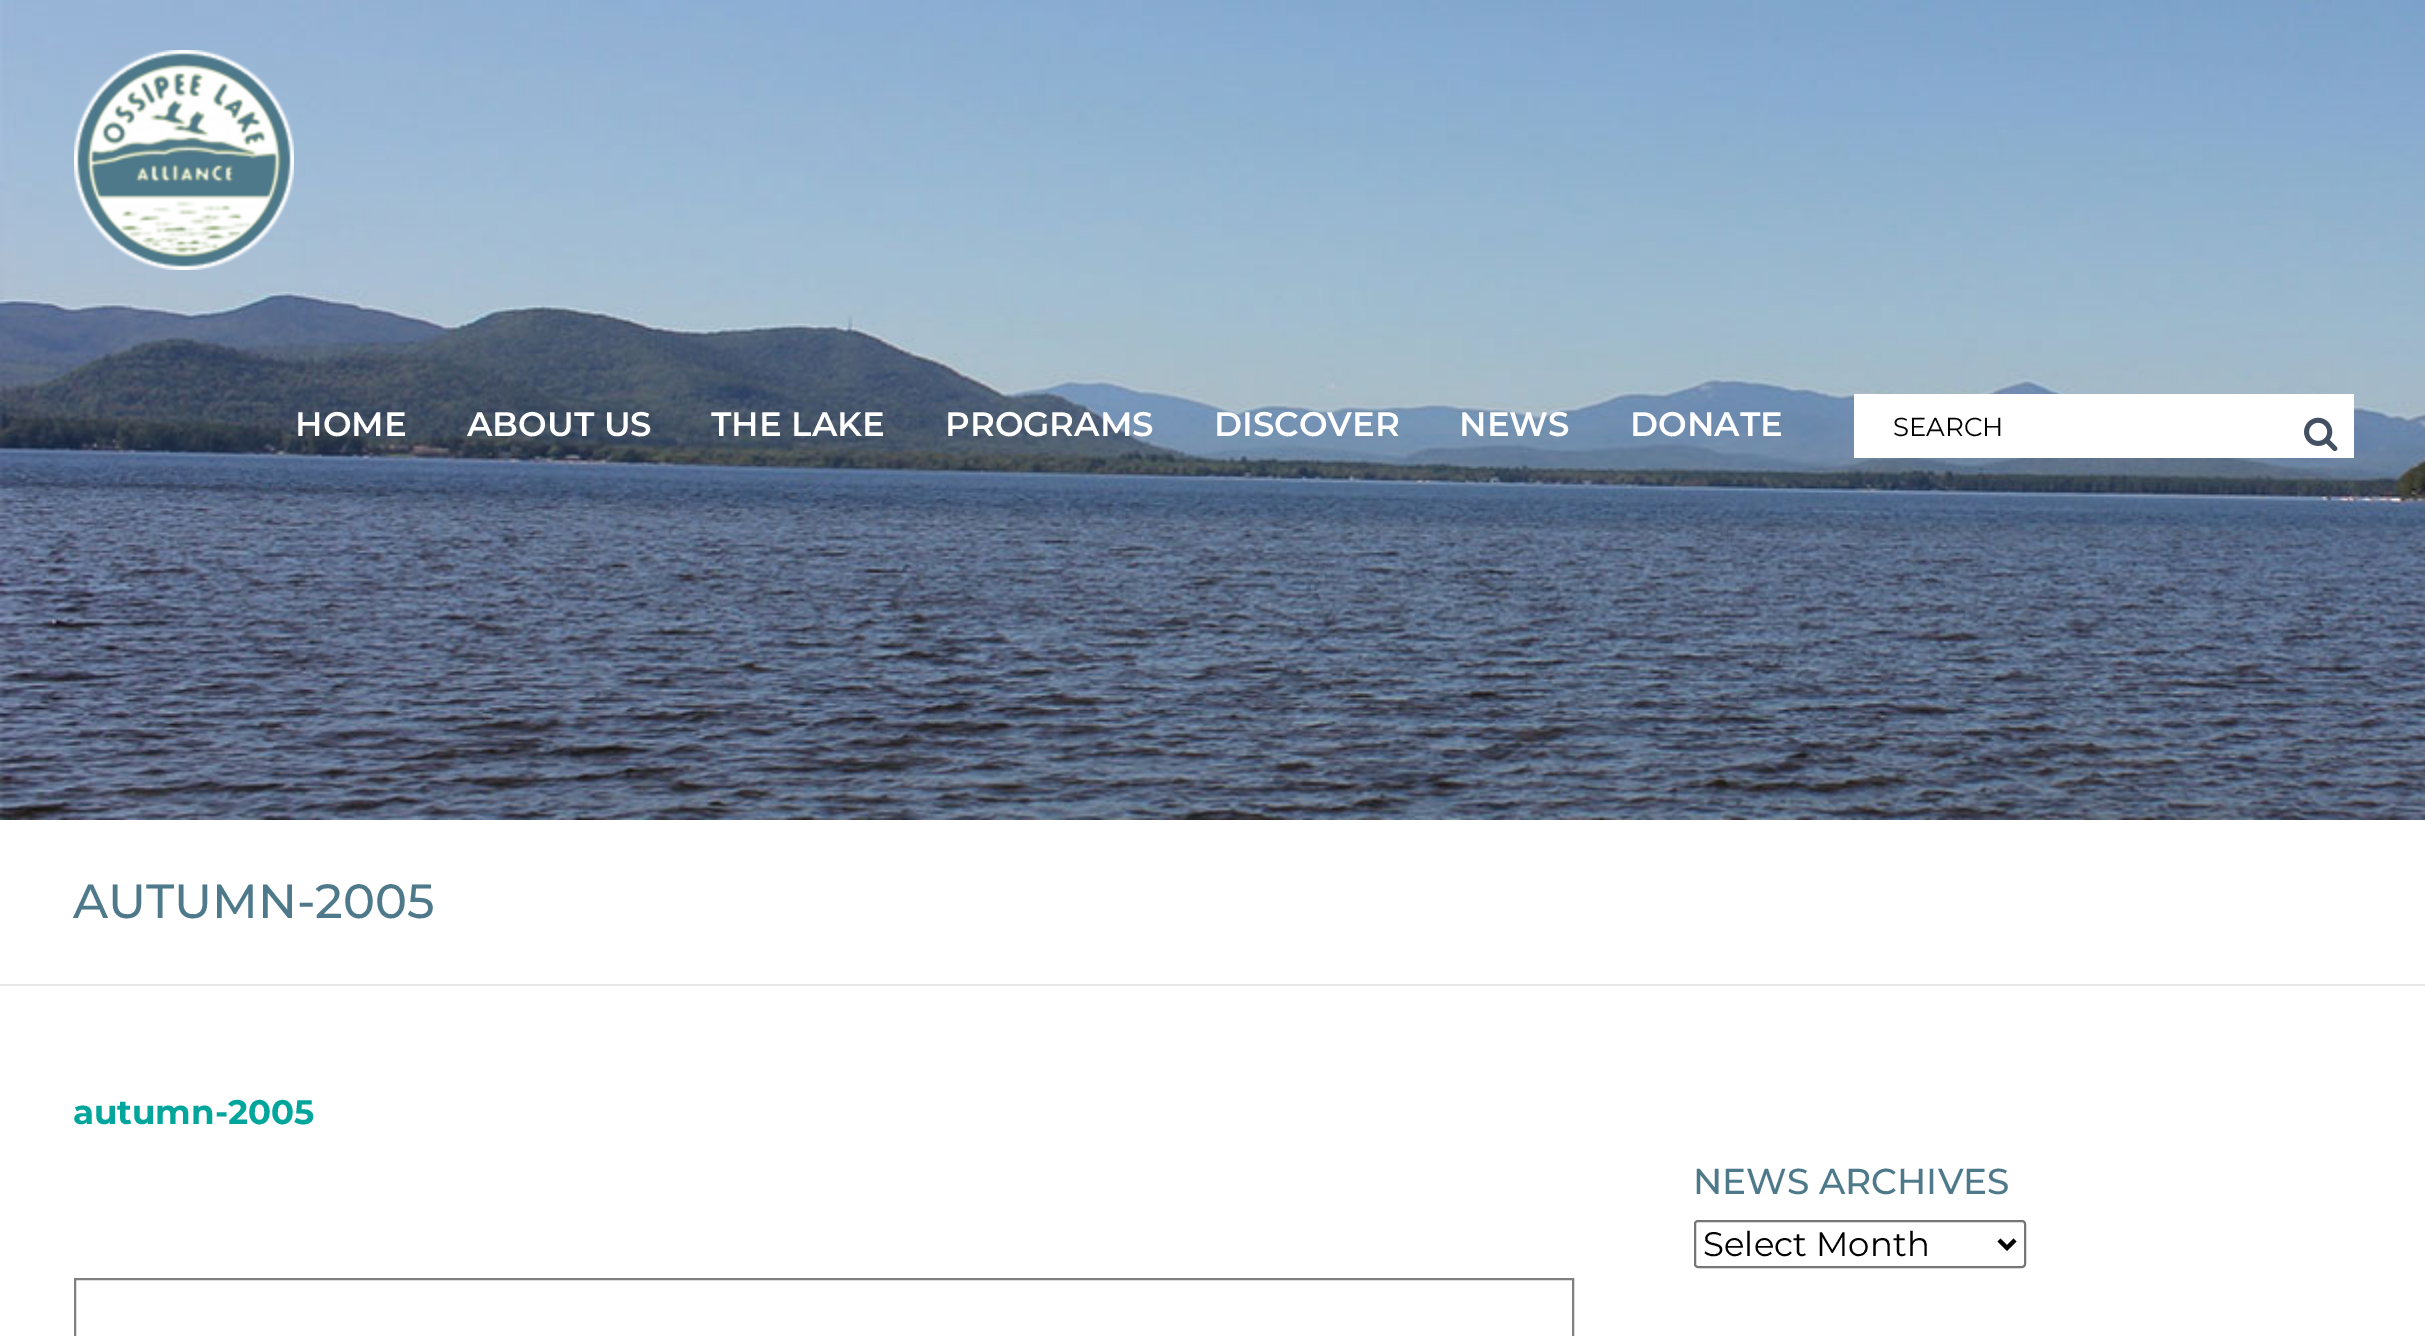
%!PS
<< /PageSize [2425 1336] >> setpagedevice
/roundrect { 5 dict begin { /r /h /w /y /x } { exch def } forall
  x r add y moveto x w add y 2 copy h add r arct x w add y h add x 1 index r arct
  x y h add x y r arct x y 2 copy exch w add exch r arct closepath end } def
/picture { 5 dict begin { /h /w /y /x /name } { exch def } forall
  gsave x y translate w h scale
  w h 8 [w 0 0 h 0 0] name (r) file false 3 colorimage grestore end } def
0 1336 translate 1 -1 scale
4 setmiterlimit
1 setgray
0 0 2425 1336 rectfill
(img1.rgb) 0 0 2425 820 picture
(img2.rgb) 74 50 220 220 picture
/Montserrat-SemiBold [34 0 0 -34 0 0] selectfont
295 436 moveto (HOME) show
467 436 moveto (ABOUT US) show
711 436 moveto (THE LAKE) show
945 436 moveto (PROGRAMS) show
1214 436 moveto (DISCOVER) show
1459 436 moveto (NEWS) show
1630 436 moveto (DONATE) show
1854 394 500 64 rectfill
/Montserrat-Thin [26 0 0 -26 0 0] selectfont
0 setgray
1893 436 moveto (SEARCH) show
(img3.rgb) 2304 417 34 35 picture
0.902 0.91 0.918 setrgbcolor
0 984 2425 2 rectfill
/Montserrat-Medium [48 0 0 -48 0 0] selectfont
0.306 0.475 0.541 setrgbcolor
73 918 moveto (AUTUMN-2005) show
/Montserrat-Bold [34 0 0 -34 0 0] selectfont
0 0.647 0.612 setrgbcolor
73 1124 moveto (autumn-2005) show
0.502 setgray
2 setlinewidth
75 1279 1498 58 rectstroke
/Montserrat-Medium [36 0 0 -36 0 0] selectfont
0.306 0.475 0.541 setrgbcolor
1693 1194 moveto (NEWS ARCHIVES) show
0.463 setgray
1695 1221 330 46 3 roundrect stroke
0 setgray
4 setlinewidth
newpath 1999 1240 moveto 2007 1248 lineto 2015 1240 lineto stroke
/Montserrat-Thin [34 0 0 -34 0 0] selectfont
1703 1256 moveto (Select Month) show
showpage
